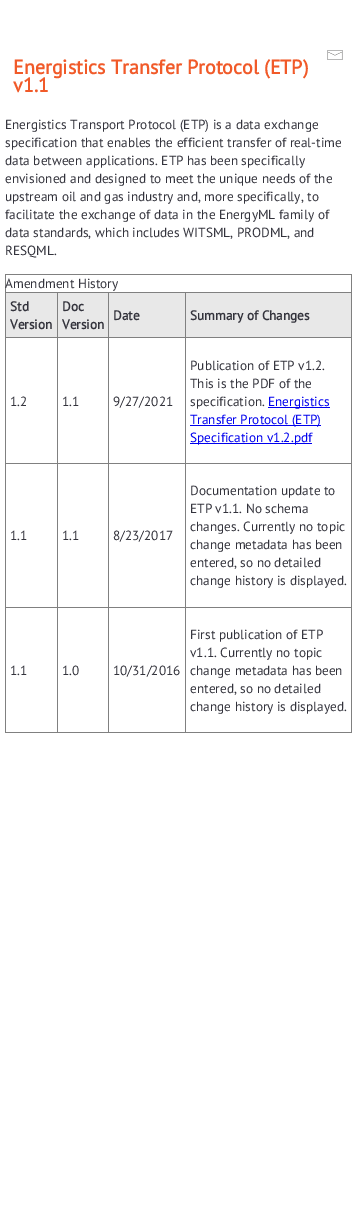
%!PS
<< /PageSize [360 1232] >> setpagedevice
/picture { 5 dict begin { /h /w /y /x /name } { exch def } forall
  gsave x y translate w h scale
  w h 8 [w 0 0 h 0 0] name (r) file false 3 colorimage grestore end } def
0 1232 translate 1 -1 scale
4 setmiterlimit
1 setgray
0 0 360 1232 rectfill
(img1.rgb) 327 50 16 10 picture
/PTSans-Bold [20 0 0 -20 0 0] selectfont
0.945 0.353 0.161 setrgbcolor
13 74 moveto (Energistics Transfer Protocol \(ETP\)) show
13 92 moveto (v1.1) show
/PTSans-Regular [13.3 0 0 -13.3 0 0] selectfont
0.2 0.2 0.235 setrgbcolor
5 129 moveto (Energistics Transport Protocol \(ETP\) is a data exchange) show
5 147 moveto (specification that enables the efficient transfer of real-time) show
5 165 moveto (data between applications. ETP has been specifically) show
5 183 moveto (envisioned and designed to meet the unique needs of the) show
5 201 moveto (upstream oil and gas industry and, more specifically, to) show
5 219 moveto (facilitate the exchange of data in the EnergyML family of) show
5 237 moveto (data standards, which includes WITSML, PRODML, and) show
5 255 moveto (RESQML.) show
0.502 setgray
5 274 347 1 rectfill
351 274 1 459 rectfill
5 732 347 1 rectfill
5 274 1 459 rectfill
0.2 0.2 0.235 setrgbcolor
5 288 moveto (Amendment History) show
0.91 setgray
6 293 345 44 rectfill
0.502 setgray
185 292 167 1 rectfill
185 337 167 1 rectfill
185 463 167 1 rectfill
185 607 167 1 rectfill
185 607 1 126 rectfill
108 607 78 1 rectfill
185 463 1 145 rectfill
108 463 78 1 rectfill
185 337 1 127 rectfill
108 337 78 1 rectfill
185 292 1 46 rectfill
108 292 78 1 rectfill
108 607 1 126 rectfill
57 607 52 1 rectfill
108 463 1 145 rectfill
57 463 52 1 rectfill
108 337 1 127 rectfill
57 337 52 1 rectfill
108 292 1 46 rectfill
57 292 52 1 rectfill
57 607 1 126 rectfill
5 607 53 1 rectfill
57 463 1 145 rectfill
5 463 53 1 rectfill
57 337 1 127 rectfill
5 337 53 1 rectfill
57 292 1 46 rectfill
5 292 53 1 rectfill
/PTSans-Bold [13.3 0 0 -13.3 0 0] selectfont
0.2 0.2 0.235 setrgbcolor
10 311 moveto (Std) show
10 329 moveto (Version) show
62 311 moveto (Doc) show
62 329 moveto (Version) show
113 320 moveto (Date) show
190 320 moveto (Summary of Changes) show
/PTSans-Regular [13.3 0 0 -13.3 0 0] selectfont
10 406 moveto (1.2) show
62 406 moveto (1.1) show
113 406 moveto (9/27/2021) show
190 370 moveto (Publication of ETP v1.2.) show
190 388 moveto (This is the PDF of the) show
190 406 moveto (specification.) show
0 0 0.933 setrgbcolor
268 407 62 1 rectfill
268 406 moveto (Energistics) show
190 425 131 1 rectfill
190 424 moveto (Transfer Protocol \(ETP\)) show
190 443 122 1 rectfill
190 442 moveto (Specification v1.2.pdf) show
0.2 0.2 0.235 setrgbcolor
10 540 moveto (1.1) show
62 540 moveto (1.1) show
113 540 moveto (8/23/2017) show
190 495 moveto (Documentation update to) show
190 513 moveto (ETP v1.1. No schema) show
190 531 moveto (changes. Currently no topic) show
190 549 moveto (change metadata has been) show
190 567 moveto (entered, so no detailed) show
190 585 moveto (change history is displayed.) show
10 675 moveto (1.1) show
62 675 moveto (1.0) show
113 675 moveto (10/31/2016) show
190 639 moveto (First publication of ETP) show
190 657 moveto (v1.1. Currently no topic) show
190 675 moveto (change metadata has been) show
190 693 moveto (entered, so no detailed) show
190 711 moveto (change history is displayed.) show
showpage
